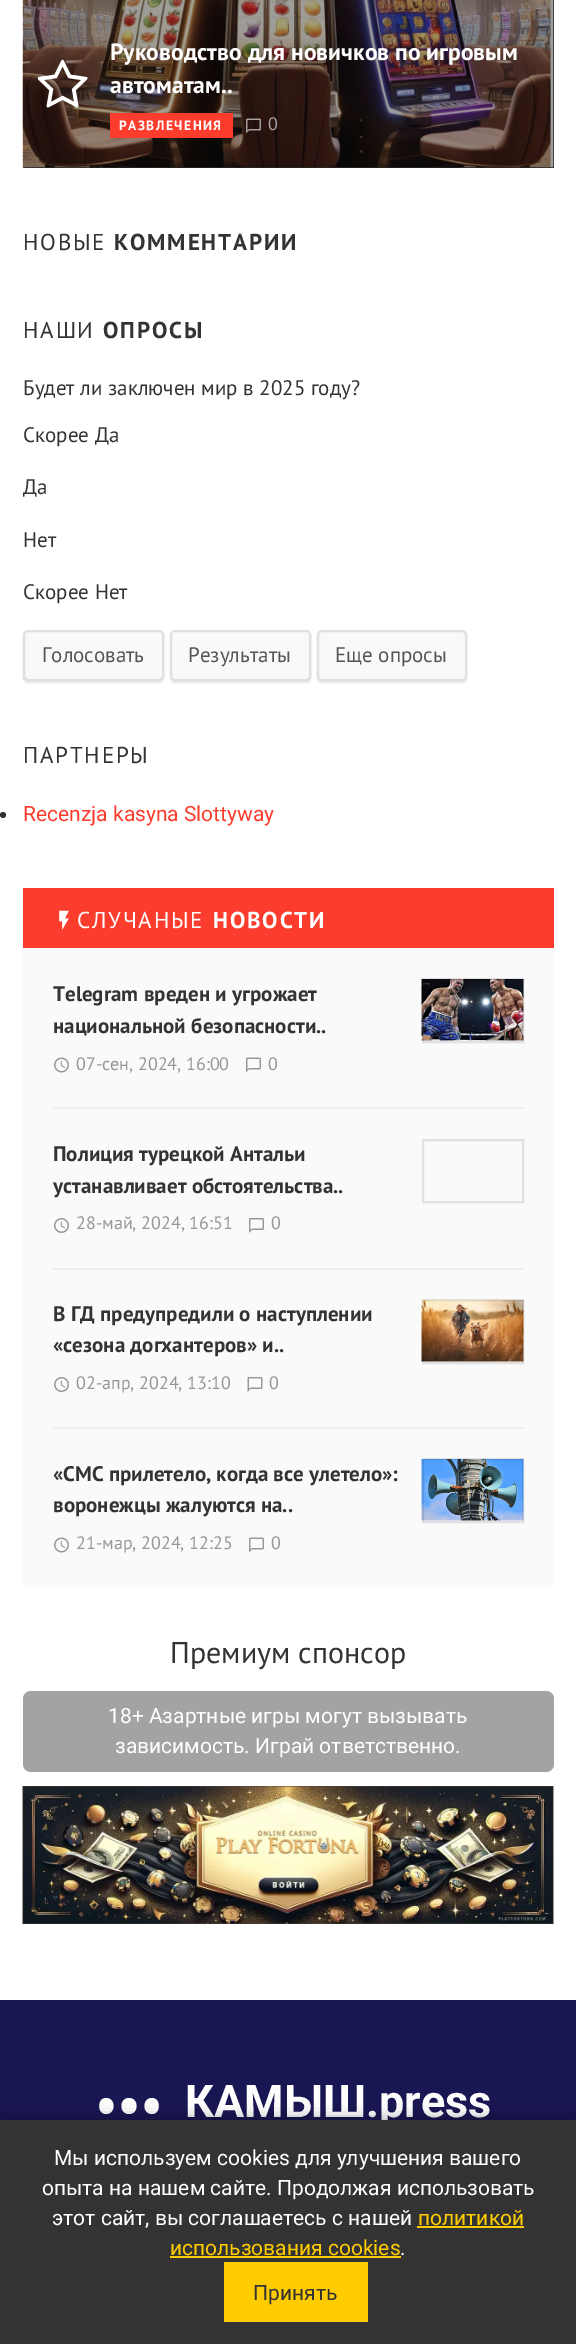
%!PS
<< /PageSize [576 2344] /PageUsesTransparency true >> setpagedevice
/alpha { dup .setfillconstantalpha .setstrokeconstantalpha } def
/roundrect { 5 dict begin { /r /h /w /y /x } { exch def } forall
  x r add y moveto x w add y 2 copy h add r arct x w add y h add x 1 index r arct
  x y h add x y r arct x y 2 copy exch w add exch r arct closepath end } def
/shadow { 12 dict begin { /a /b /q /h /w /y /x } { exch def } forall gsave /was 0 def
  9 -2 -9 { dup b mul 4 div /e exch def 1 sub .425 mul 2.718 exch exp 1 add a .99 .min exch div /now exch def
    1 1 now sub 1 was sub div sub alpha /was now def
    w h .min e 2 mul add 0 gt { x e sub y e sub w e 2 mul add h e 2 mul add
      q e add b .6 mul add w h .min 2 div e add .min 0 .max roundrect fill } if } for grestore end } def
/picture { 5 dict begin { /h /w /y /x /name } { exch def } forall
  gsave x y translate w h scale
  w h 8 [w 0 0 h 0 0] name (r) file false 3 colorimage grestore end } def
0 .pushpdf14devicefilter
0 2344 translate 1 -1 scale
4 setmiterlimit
1 setgray
0 0 576 2344 rectfill
0.145 setgray
23 0 531 168 rectfill
(img1.rgb) 22 0 532 168 picture
(img2.rgb) 38 59 50 49 picture
/PTSans-Bold [23.6 0 0 -23.6 0 0] selectfont
1 setgray
110 60 moveto (Руководство для новичков по игровым) show
110 93 moveto (автоматам..) show
0.988 0.235 0.176 setrgbcolor
110 113 123 25 rectfill
/PTSans-Bold [13.5 0 0 -13.5 0 0] selectfont
1 setgray
119 130 moveto 1.5 0 (РАЗВЛЕЧЕНИЯ) ashow
(img3.rgb) 246 118 15 16 picture
/PTSans-Regular [18 0 0 -18 0 0] selectfont
0.655 0.627 0.62 setrgbcolor
268 130 moveto (0) show
/PTSans-Regular [23 0 0 -23 0 0] selectfont
0.2 setgray
23 250 moveto 1.8 0 (НОВЫЕ) ashow
/PTSans-Bold [23 0 0 -23 0 0] selectfont
114 250 moveto 1.8 0 (КОММЕНТАРИИ) ashow
/PTSans-Regular [23 0 0 -23 0 0] selectfont
23 338 moveto 1.8 0 (НАШИ) ashow
/PTSans-Bold [23 0 0 -23 0 0] selectfont
103 338 moveto 1.8 0 (ОПРОСЫ) ashow
/PTSans-Regular [21 0 0 -21 0 0] selectfont
23 395 moveto (Будет ли заключен мир в 2025 году?) show
23 442 moveto (Скорее Да) show
23 494 moveto (Да) show
23 547 moveto (Нет) show
23 599 moveto (Скорее Нет) show
0 setgray
23 632 141 51 5 1 0.1 shadow
0.976 setgray
23 630 141 51 5 roundrect fill
0.1 alpha
0 setgray
2 setlinewidth
24 631 139 49 4 roundrect stroke
1 alpha
0.333 setgray
42 662 moveto (Голосовать) show
0 setgray
170 632 141 51 5 1 0.1 shadow
0.976 setgray
170 630 141 51 5 roundrect fill
0.1 alpha
0 setgray
171 631 139 49 4 roundrect stroke
1 alpha
0.333 setgray
188 662 moveto (Результаты) show
0 setgray
317 632 150 51 5 1 0.1 shadow
0.976 setgray
317 630 150 51 5 roundrect fill
0.1 alpha
0 setgray
318 631 148 49 4 roundrect stroke
1 alpha
0.333 setgray
335 662 moveto (Еще опросы) show
/PTSans-Regular [23 0 0 -23 0 0] selectfont
0.2 setgray
23 763 moveto 1.8 0 (ПАРТНЕРЫ) ashow
newpath 3 815 3 0 360 arc closepath fill
/Roboto-Regular [21 0 0 -21 0 0] selectfont
0.988 0.235 0.176 setrgbcolor
23 821 moveto (Recenzja kasyna Slottyway) show
23 888 531 60 rectfill
(img4.rgb) 59 910 10 20 picture
/PTSans-Regular [23 0 0 -23 0 0] selectfont
1 setgray
77 928 moveto 1.8 0 (СЛУЧАНЫЕ) ashow
/PTSans-Bold [23 0 0 -23 0 0] selectfont
213 928 moveto 1.8 0 (НОВОСТИ) ashow
0.98 setgray
23 948 531 639 rectfill
0.933 setgray
53 1107 471 2 rectfill
gsave
53 978 354 99 rectclip
/PTSans-Bold [21 0 0 -21 0 0] selectfont
0.2 setgray
53 1001 moveto (Telegram вреден и угрожает) show
grestore
/PTSans-Bold [21 0 0 -21 0 0] selectfont
0.2 setgray
53 1033 moveto (национальной безопасности..) show
(img5.rgb) 54 1057 15 16 picture
/PTSans-Regular [18 0 0 -18 0 0] selectfont
0.588 setgray
76 1070 moveto (07-сен, 2024, 16:00) show
(img6.rgb) 246 1057 15 16 picture
268 1070 moveto (0) show
(img7.rgb) 421 979 103 62 picture
0.1 alpha
0 setgray
423 979 100 63 rectstroke
1 alpha
0.933 setgray
53 1268 471 2 rectfill
/PTSans-Bold [21 0 0 -21 0 0] selectfont
0.2 setgray
53 1161 moveto (Полиция турецкой Антальи) show
53 1193 moveto (устанавливает обстоятельства..) show
(img8.rgb) 54 1218 15 15 picture
/PTSans-Regular [18 0 0 -18 0 0] selectfont
0.588 setgray
76 1229 moveto (28-май, 2024, 16:51) show
(img9.rgb) 249 1218 15 15 picture
271 1229 moveto (0) show
0.882 setgray
423 1140 100 62 rectstroke
0.933 setgray
53 1427 471 2 rectfill
/PTSans-Bold [21 0 0 -21 0 0] selectfont
0.2 setgray
53 1321 moveto (В ГД предупредили о наступлении) show
53 1352 moveto («сезона догхантеров» и..) show
(img8.rgb) 54 1377 15 15 picture
/PTSans-Regular [18 0 0 -18 0 0] selectfont
0.588 setgray
76 1389 moveto (02-апр, 2024, 13:10) show
(img10.rgb) 247 1377 16 15 picture
269 1389 moveto (0) show
(img11.rgb) 421 1300 103 62 picture
0.1 alpha
0 setgray
423 1300 100 63 rectstroke
/PTSans-Bold [21 0 0 -21 0 0] selectfont
1 alpha
0.2 setgray
53 1481 moveto («СМС прилетело, когда все улетело»:) show
53 1512 moveto (воронежцы жалуются на..) show
(img5.rgb) 54 1537 15 16 picture
/PTSans-Regular [18 0 0 -18 0 0] selectfont
0.588 setgray
76 1549 moveto (21-мар, 2024, 12:25) show
(img6.rgb) 249 1537 15 16 picture
271 1549 moveto (0) show
(img12.rgb) 421 1459 103 62 picture
0.1 alpha
0 setgray
423 1459 100 63 rectstroke
/PTSans-Regular [30 0 0 -30 0 0] selectfont
1 alpha
0.2 setgray
170 1663 moveto (Премиум спонсор) show
0.639 setgray
23 1691 531 81 8 roundrect fill
/Roboto-Regular [21 0 0 -21 0 0] selectfont
1 setgray
108 1723 moveto (18+ Азартные игры могут вызывать) show
115 1753 moveto (зависимость. Играй ответственно.) show
(img13.rgb) 22 1786 532 138 picture
0.098 0.086 0.329 setrgbcolor
0 2000 576 120 rectfill
1 setgray
newpath 129 2098 moveto 139 2098 139 2114 129 2114 curveto 119 2114 119 2098 129 2098 curveto closepath 152 2098 moveto 161 2098 161 2114 152 2114 curveto 142 2114 142 2098 152 2098 curveto closepath 106 2098 moveto 116 2098 116 2114 106 2114 curveto 97 2114 97 2098 106 2098 curveto closepath fill
/Roboto-Bold [45 0 0 -45 0 0] selectfont
185 2117 moveto (КАМЫШ.press) show
0 setgray
0 2117 576 225 0 7.5 0.3 shadow
0.2 setgray
0 2120 576 224 rectfill
/Roboto-Regular [21 0 0 -21 0 0] selectfont
1 setgray
54 2165 moveto (Мы используем cookies для улучшения вашего) show
42 2195 moveto (опыта на нашем сайте. Продолжая использовать) show
52 2225 moveto (этот сайт, вы соглашаетесь с нашей) show
1 0.8 0 setrgbcolor
418 2225 moveto (политикой) show
417 2226 107 2 rectfill
170 2255 moveto (использования cookies) show
170 2256 231 2 rectfill
1 setgray
400 2255 moveto (.) show
1 0.8 0 setrgbcolor
224 2262 144 60 rectfill
0.2 setgray
253 2300 moveto (Принять) show
.poppdf14devicefilter showpage
